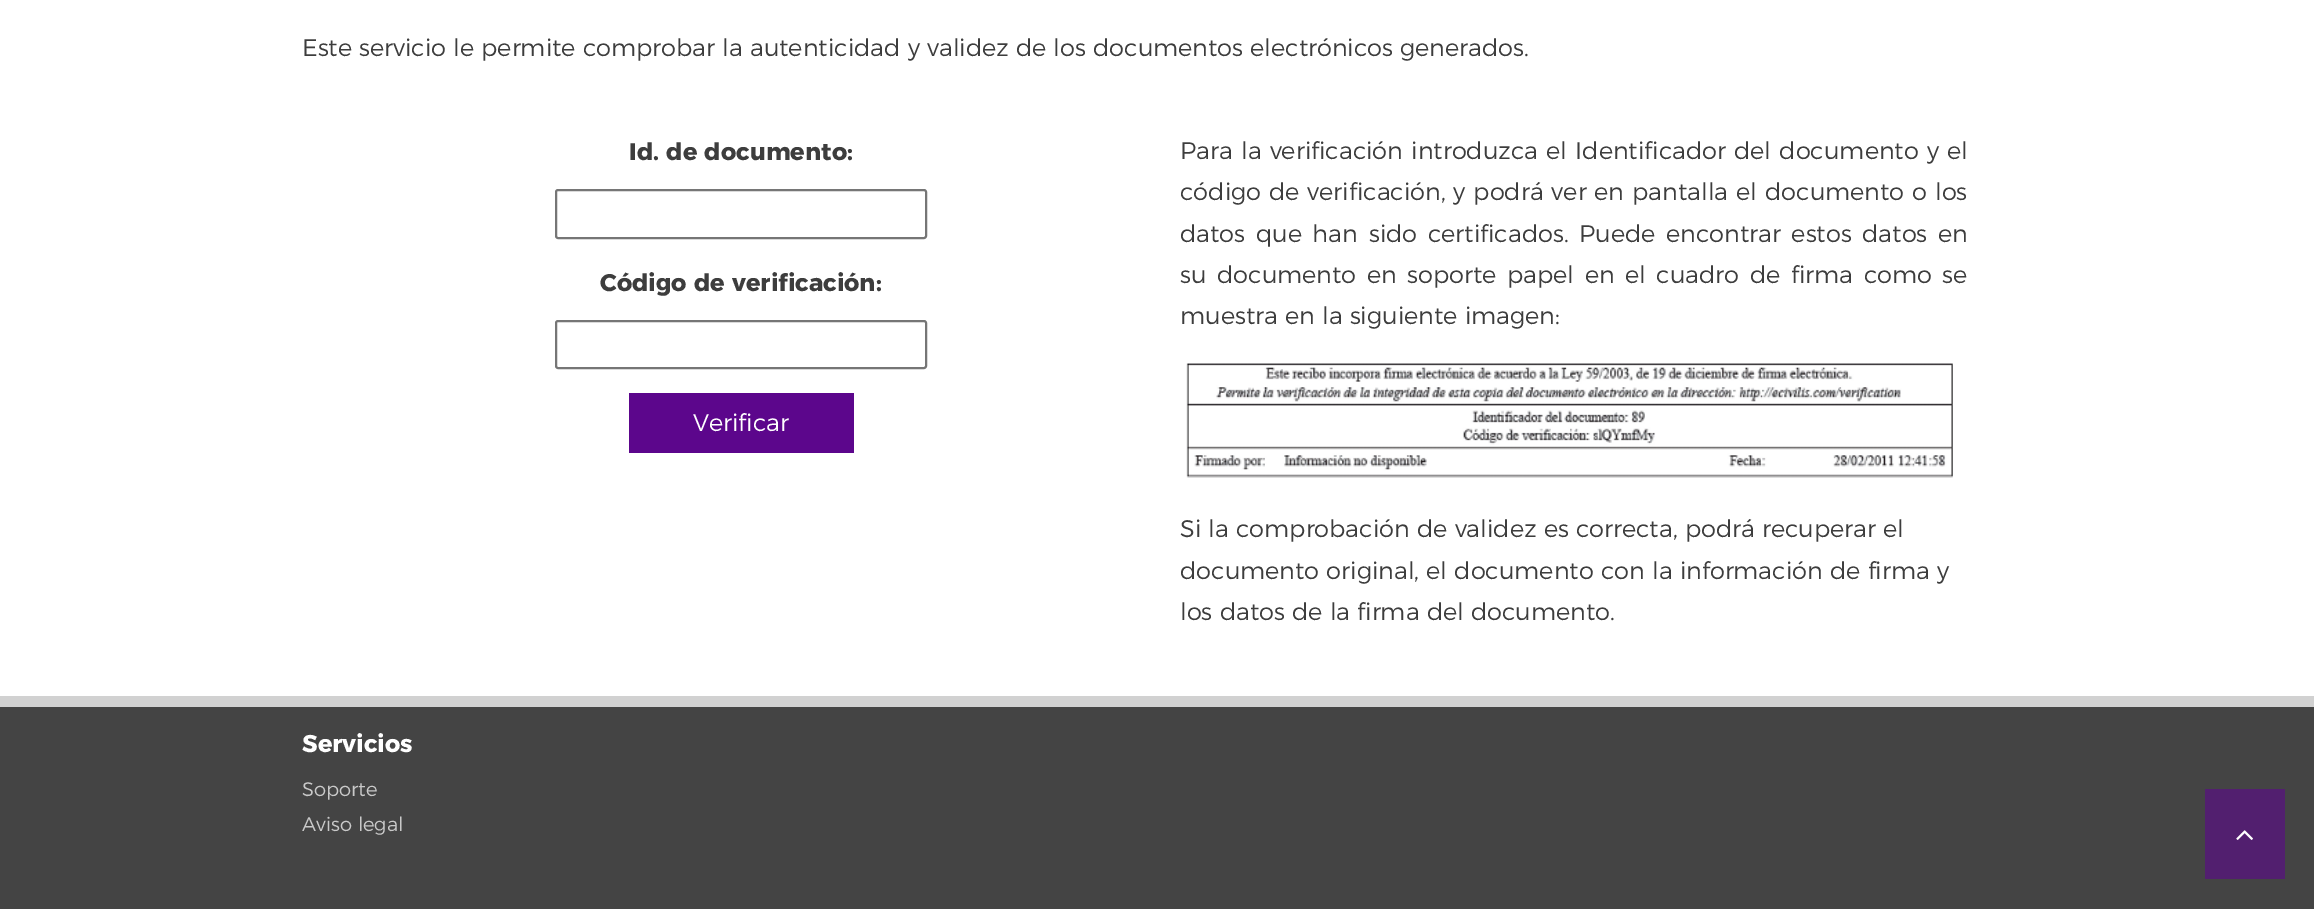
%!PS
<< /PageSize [2314 909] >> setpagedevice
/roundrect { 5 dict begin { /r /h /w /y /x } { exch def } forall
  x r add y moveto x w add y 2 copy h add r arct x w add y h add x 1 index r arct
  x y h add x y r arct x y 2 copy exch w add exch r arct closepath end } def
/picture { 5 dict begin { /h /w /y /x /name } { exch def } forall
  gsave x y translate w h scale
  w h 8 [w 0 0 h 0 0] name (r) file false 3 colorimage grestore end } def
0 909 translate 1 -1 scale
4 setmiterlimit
1 setgray
0 0 2314 909 rectfill
/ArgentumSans-Light [24 0 0 -24 0 0] selectfont
0.239 setgray
302 56 moveto (Este servicio le permite comprobar la autenticidad y validez de los documentos electrónicos generados.) show
/ArgentumSans-Bold [24 0 0 -24 0 0] selectfont
629 160 moveto (Id. de documento:) show
0.463 setgray
2 setlinewidth
556 190 370 48 2 roundrect stroke
0.239 setgray
600 291 moveto (Código de verificación:) show
0.463 setgray
556 321 370 47 2 roundrect stroke
0.361 0.024 0.549 setrgbcolor
629 393 225 60 rectfill
/ArgentumSans-Light [24 0 0 -24 0 0] selectfont
1 setgray
693 431 moveto (Verificar) show
0.239 setgray
1180 159 moveto 1 0 32 (Para la verificación introduzca el Identificador del documento y el) widthshow
1180 200 moveto 0.75 0 32 (código de verificación, y podrá ver en pantalla el documento o los) widthshow
1180 242 moveto 3.5 0 32 (datos que han sido certificados. Puede encontrar estos datos en) widthshow
1180 283 moveto 3.4 0 32 (su documento en soporte papel en el cuadro de firma como se) widthshow
1180 324 moveto (muestra en la siguiente imagen:) show
(img1.rgb) 1186 363 767 115 picture
1180 537 moveto (Si la comprobación de validez es correcta, podrá recuperar el) show
1180 579 moveto (documento original, el documento con la información de firma y) show
1180 620 moveto (los datos de la firma del documento.) show
0.267 setgray
0 707 2314 202 rectfill
0.82 setgray
0 696 2314 11 rectfill
/ArgentumSans-Bold [24 0 0 -24 0 0] selectfont
1 setgray
302 752 moveto (Servicios) show
/ArgentumSans-Light [19.5 0 0 -19.5 0 0] selectfont
0.788 setgray
302 796 moveto (Soporte) show
302 831 moveto (Aviso legal) show
0.322 0.122 0.435 setrgbcolor
2205 789 80 90 rectfill
(img2.rgb) 2236 830 17 10 picture
showpage
